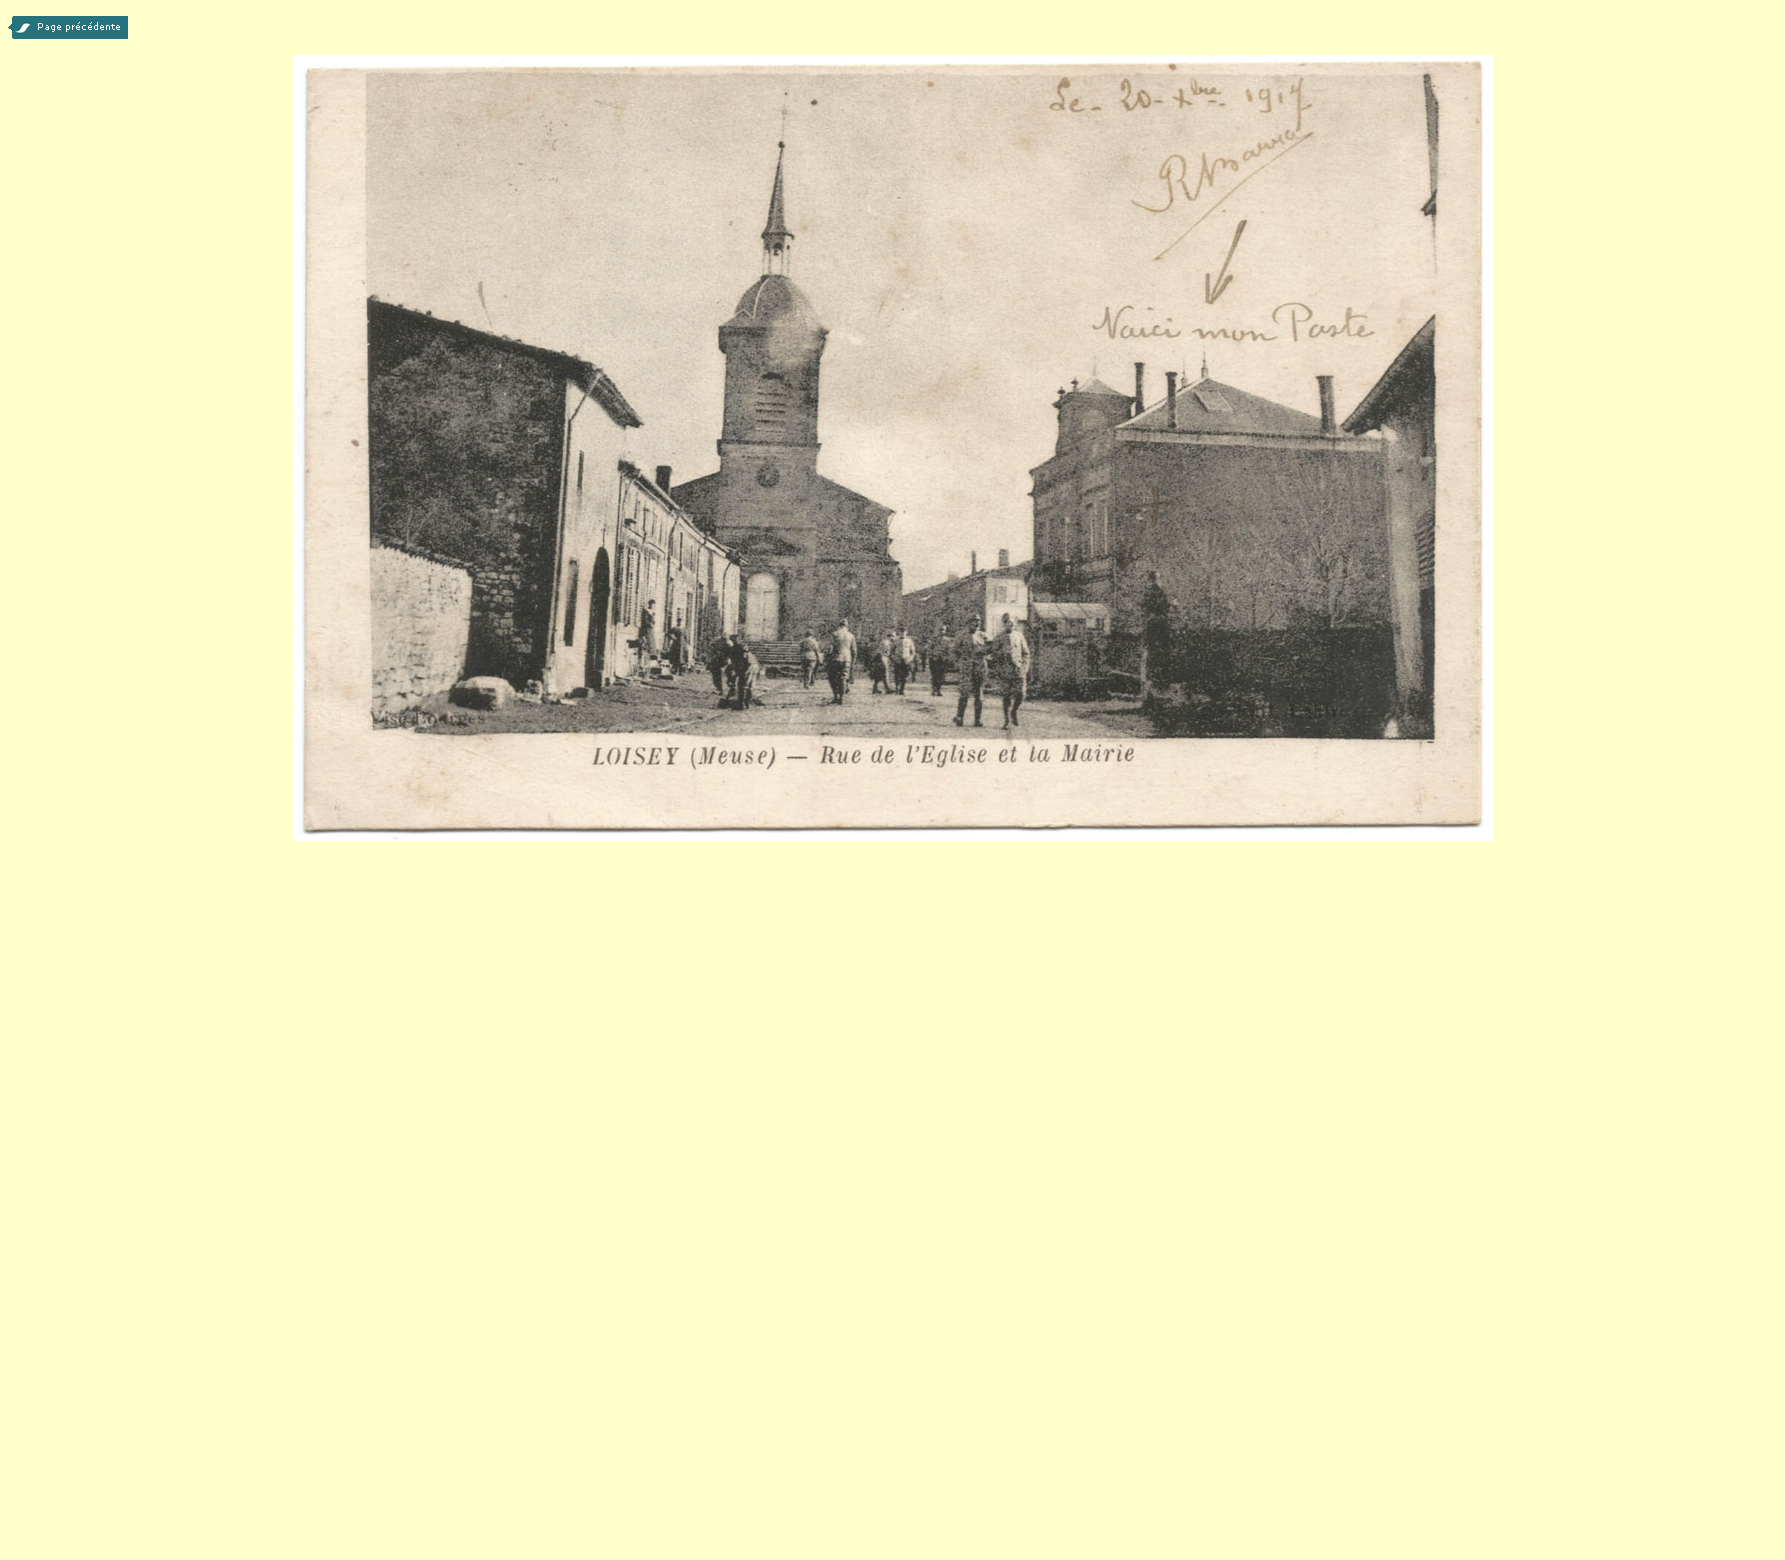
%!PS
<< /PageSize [1785 1560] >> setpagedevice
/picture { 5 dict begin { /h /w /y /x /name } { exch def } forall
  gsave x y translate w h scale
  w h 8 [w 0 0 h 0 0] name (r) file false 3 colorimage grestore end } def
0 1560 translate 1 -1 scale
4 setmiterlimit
1 1 0.8 setrgbcolor
0 0 1785 1560 rectfill
(img1.rgb) 8 16 120 23 picture
(img2.rgb) 293 55 1200 786 picture
showpage
